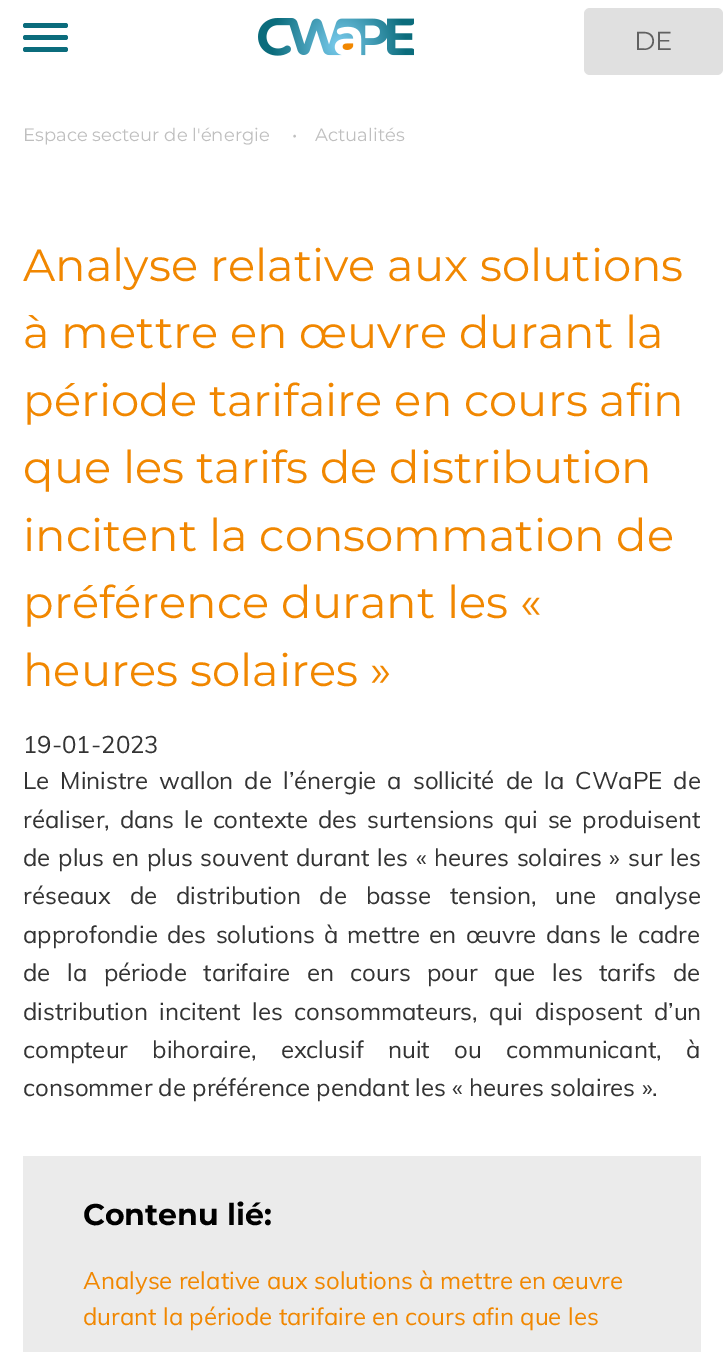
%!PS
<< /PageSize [723 1352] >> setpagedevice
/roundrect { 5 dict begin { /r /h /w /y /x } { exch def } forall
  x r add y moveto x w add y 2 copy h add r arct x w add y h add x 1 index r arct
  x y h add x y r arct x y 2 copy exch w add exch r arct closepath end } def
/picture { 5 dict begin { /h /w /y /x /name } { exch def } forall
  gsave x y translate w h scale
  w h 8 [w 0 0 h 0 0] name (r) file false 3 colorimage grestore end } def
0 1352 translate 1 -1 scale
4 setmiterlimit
1 setgray
0 0 723 1352 rectfill
0.043 0.424 0.486 setrgbcolor
23 35 45 5 2.5 roundrect fill
23 23 45 5 2.5 roundrect fill
23 47 45 5 2.5 roundrect fill
(img1.rgb) 258 18 156 38 picture
0.878 setgray
584 8 139 67 6 roundrect fill
/Montserrat-Regular [26 0 0 -26 0 0] selectfont
0.38 setgray
634 50 moveto (DE) show
/Montserrat-Regular [18 0 0 -18 0 0] selectfont
0.749 setgray
23 141 moveto (Espace secteur de l'énergie) show
292 141 moveto (•) show
315 141 moveto (Actualités) show
/Montserrat-Regular [45 0 0 -45 0 0] selectfont
0.945 0.529 0 setrgbcolor
23 281 moveto (Analyse relative aux solutions) show
23 348 moveto (à mettre en œuvre durant la) show
23 416 moveto (période tarifaire en cours afin) show
23 483 moveto (que les tarifs de distribution) show
23 551 moveto (incitent la consommation de) show
23 618 moveto (préférence durant les «) show
23 686 moveto (heures solaires ») show
/Muli-Regular [24 0 0 -24 0 0] selectfont
0.2 setgray
23 753 moveto (19-01-2023) show
23 789 moveto 4.75 0 32 (Le Ministre wallon de l’énergie a sollicité de la CWaPE de) widthshow
23 828 moveto 3.5 0 32 (réaliser, dans le contexte des surtensions qui se produisent) widthshow
23 866 moveto 1.5 0 32 (de plus en plus souvent durant les « heures solaires » sur les) widthshow
23 904 moveto 12.5 0 32 (réseaux de distribution de basse tension, une analyse) widthshow
23 943 moveto 3 0 32 (approfondie des solutions à mettre en œuvre dans le cadre) widthshow
23 981 moveto 10.25 0 32 (de la période tarifaire en cours pour que les tarifs de) widthshow
23 1020 moveto 5.25 0 32 (distribution incitent les consommateurs, qui disposent d’un) widthshow
23 1058 moveto 18 0 32 (compteur bihoraire, exclusif nuit ou communicant, à) widthshow
23 1096 moveto (consommer de préférence pendant les « heures solaires ».) show
0.922 setgray
23 1156 678 196 rectfill
/Montserrat-Bold [30 0 0 -30 0 0] selectfont
0 setgray
83 1225 moveto (Contenu lié:) show
/Muli-Regular [24 0 0 -24 0 0] selectfont
0.945 0.529 0 setrgbcolor
83 1289 moveto (Analyse relative aux solutions à mettre en œuvre) show
83 1325 moveto (durant la période tarifaire en cours afin que les) show
showpage
